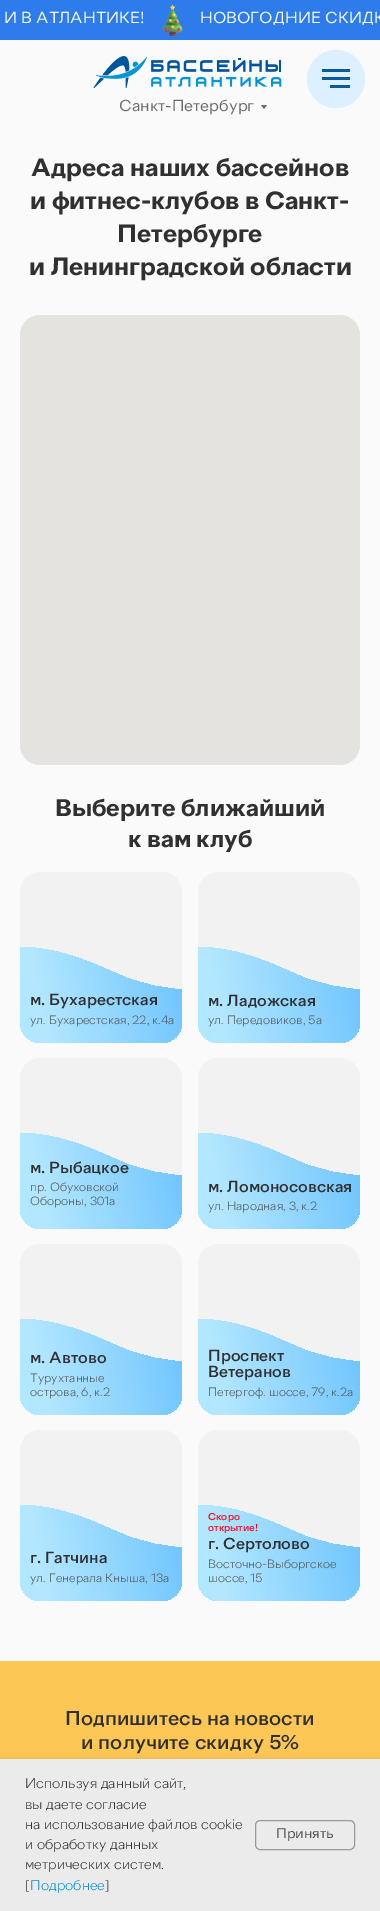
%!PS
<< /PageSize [380 1911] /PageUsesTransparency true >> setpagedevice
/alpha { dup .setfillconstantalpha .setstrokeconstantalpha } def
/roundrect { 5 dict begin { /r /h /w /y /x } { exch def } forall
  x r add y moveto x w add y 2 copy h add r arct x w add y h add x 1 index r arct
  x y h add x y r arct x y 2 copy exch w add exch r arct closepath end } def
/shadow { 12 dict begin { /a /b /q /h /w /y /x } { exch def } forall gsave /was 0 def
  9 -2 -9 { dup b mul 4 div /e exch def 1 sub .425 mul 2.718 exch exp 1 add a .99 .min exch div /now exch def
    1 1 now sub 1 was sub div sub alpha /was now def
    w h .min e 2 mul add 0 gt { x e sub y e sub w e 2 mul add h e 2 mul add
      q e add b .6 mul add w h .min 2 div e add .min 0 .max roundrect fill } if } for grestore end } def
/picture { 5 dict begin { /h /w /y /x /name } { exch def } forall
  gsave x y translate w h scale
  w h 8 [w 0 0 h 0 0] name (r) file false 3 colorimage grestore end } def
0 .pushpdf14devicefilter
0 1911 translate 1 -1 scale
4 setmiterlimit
0.98 setgray
0 0 380 1911 rectfill
0.18 0.486 0.922 setrgbcolor
0 0 380 40 rectfill
/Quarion-Regular [16 0 0 -16 0 0] selectfont
1 setgray
4 23 moveto (И В АТЛАНТИКЕ!) show
(img1.rgb) 162 5 21 31 picture
200 23 moveto (НОВОГОДНИЕ СКИДК) show
(img2.rgb) 93 56 189 32 picture
0.427 setgray
119 111 moveto (Санкт-Петербург) show
newpath 261 105 moveto 267 105 lineto 264 109 lineto closepath fill
0.863 0.941 1 setrgbcolor
newpath 336 79 29 0 360 arc closepath fill
0.031 0.353 0.604 setrgbcolor
322 69 28 3 rectfill
322 77 28 3 rectfill
330 85 20 3 rectfill
/Quarion-SemiBold [25 0 0 -25 0 0] selectfont
0.188 setgray
31 176 moveto (Адреса наших бассейнов) show
30 209 moveto (и фитнес-клубов в Санкт-) show
117 242 moveto (Петербурге) show
29 275 moveto (и Ленинградской области) show
0.898 0.89 0.875 setrgbcolor
20 315 340 450 20 roundrect fill
/Quarion-SemiBold [24 0 0 -24 0 0] selectfont
0.188 setgray
55 816 moveto (Выберите ближайший) show
128 847 moveto (к вам клуб) show
0.949 setgray
20 872 162 168 20 roundrect fill
198 872 162 168 20 roundrect fill
gsave newpath 40 1043 moveto 162 1043 lineto 173 1043 182 1034 182 1023 curveto 182 990 lineto 163 988 145 985 127 978 curveto 92 963 lineto 69 954 45 947 20 947 curveto 20 1023 lineto 20 1034 29 1043 40 1043 curveto closepath clip newpath
<< /ShadingType 2 /ColorSpace /DeviceRGB /Coords [-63 1031 212 974] /Extend [true true] /Function << /FunctionType 3 /Domain [0 1] /Functions [<< /FunctionType 2 /Domain [0 1] /C0 [0.643 0.937 1] /C1 [0.702 0.906 1] /N 1 >> << /FunctionType 2 /Domain [0 1] /C0 [0.702 0.906 1] /C1 [0.4 0.753 0.996] /N 1 >> << /FunctionType 2 /Domain [0 1] /C0 [0.4 0.753 0.996] /C1 [0.4 0.753 0.996] /N 1 >>] /Bounds [0.38 0.97] /Encode [0 1 0 1 0 1] >> >> shfill grestore
gsave newpath 218 1043 moveto 340 1043 lineto 351 1043 360 1034 360 1023 curveto 360 990 lineto 341 988 323 985 305 978 curveto 270 963 lineto 247 954 223 947 198 947 curveto 198 1023 lineto 198 1034 207 1043 218 1043 curveto closepath clip newpath
<< /ShadingType 2 /ColorSpace /DeviceRGB /Coords [115 1031 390 974] /Extend [true true] /Function << /FunctionType 3 /Domain [0 1] /Functions [<< /FunctionType 2 /Domain [0 1] /C0 [0.643 0.937 1] /C1 [0.702 0.906 1] /N 1 >> << /FunctionType 2 /Domain [0 1] /C0 [0.702 0.906 1] /C1 [0.4 0.753 0.996] /N 1 >> << /FunctionType 2 /Domain [0 1] /C0 [0.4 0.753 0.996] /C1 [0.4 0.753 0.996] /N 1 >>] /Bounds [0.38 0.97] /Encode [0 1 0 1 0 1] >> >> shfill grestore
/Quarion-Medium [16 0 0 -16 0 0] selectfont
0.188 setgray
30 1005 moveto (м. Бухарестская) show
208 1006 moveto (м. Ладожская) show
/Quarion-Light [12 0 0 -12 0 0] selectfont
0.322 0.318 0.318 setrgbcolor
30 1024 moveto (ул. Бухарестская, 22, к.4а) show
208 1024 moveto (ул. Передовиков, 5а) show
0.949 setgray
20 1058 162 168 20 roundrect fill
198 1058 162 168 20 roundrect fill
gsave newpath 40 1229 moveto 162 1229 lineto 173 1229 182 1220 182 1209 curveto 182 1176 lineto 163 1174 145 1171 127 1164 curveto 92 1149 lineto 69 1140 45 1133 20 1133 curveto 20 1209 lineto 20 1220 29 1229 40 1229 curveto closepath clip newpath
<< /ShadingType 2 /ColorSpace /DeviceRGB /Coords [-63 1217 212 1160] /Extend [true true] /Function << /FunctionType 3 /Domain [0 1] /Functions [<< /FunctionType 2 /Domain [0 1] /C0 [0.643 0.937 1] /C1 [0.702 0.906 1] /N 1 >> << /FunctionType 2 /Domain [0 1] /C0 [0.702 0.906 1] /C1 [0.4 0.753 0.996] /N 1 >> << /FunctionType 2 /Domain [0 1] /C0 [0.4 0.753 0.996] /C1 [0.4 0.753 0.996] /N 1 >>] /Bounds [0.38 0.97] /Encode [0 1 0 1 0 1] >> >> shfill grestore
gsave newpath 218 1229 moveto 340 1229 lineto 351 1229 360 1220 360 1209 curveto 360 1176 lineto 341 1174 323 1171 305 1164 curveto 270 1149 lineto 247 1140 223 1133 198 1133 curveto 198 1209 lineto 198 1220 207 1229 218 1229 curveto closepath clip newpath
<< /ShadingType 2 /ColorSpace /DeviceRGB /Coords [115 1217 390 1160] /Extend [true true] /Function << /FunctionType 3 /Domain [0 1] /Functions [<< /FunctionType 2 /Domain [0 1] /C0 [0.643 0.937 1] /C1 [0.702 0.906 1] /N 1 >> << /FunctionType 2 /Domain [0 1] /C0 [0.702 0.906 1] /C1 [0.4 0.753 0.996] /N 1 >> << /FunctionType 2 /Domain [0 1] /C0 [0.4 0.753 0.996] /C1 [0.4 0.753 0.996] /N 1 >>] /Bounds [0.38 0.97] /Encode [0 1 0 1 0 1] >> >> shfill grestore
/Quarion-Medium [16 0 0 -16 0 0] selectfont
0.188 setgray
30 1173 moveto (м. Рыбацкое) show
/Quarion-Light [12 0 0 -12 0 0] selectfont
0.322 0.318 0.318 setrgbcolor
30 1191 moveto (пр. Обуховской) show
30 1205 moveto (Обороны, 301а) show
/Quarion-Medium [16 0 0 -16 0 0] selectfont
0.188 setgray
208 1192 moveto (м. Ломоносовская) show
/Quarion-Light [12 0 0 -12 0 0] selectfont
0.322 0.318 0.318 setrgbcolor
208 1210 moveto (ул. Народная, 3, к.2) show
0.949 setgray
20 1244 162 168 20 roundrect fill
198 1244 162 168 20 roundrect fill
gsave newpath 40 1415 moveto 162 1415 lineto 173 1415 182 1406 182 1395 curveto 182 1362 lineto 163 1360 145 1357 127 1350 curveto 92 1335 lineto 69 1326 45 1319 20 1319 curveto 20 1395 lineto 20 1406 29 1415 40 1415 curveto closepath clip newpath
<< /ShadingType 2 /ColorSpace /DeviceRGB /Coords [-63 1403 212 1346] /Extend [true true] /Function << /FunctionType 3 /Domain [0 1] /Functions [<< /FunctionType 2 /Domain [0 1] /C0 [0.643 0.937 1] /C1 [0.702 0.906 1] /N 1 >> << /FunctionType 2 /Domain [0 1] /C0 [0.702 0.906 1] /C1 [0.4 0.753 0.996] /N 1 >> << /FunctionType 2 /Domain [0 1] /C0 [0.4 0.753 0.996] /C1 [0.4 0.753 0.996] /N 1 >>] /Bounds [0.38 0.97] /Encode [0 1 0 1 0 1] >> >> shfill grestore
gsave newpath 218 1415 moveto 340 1415 lineto 351 1415 360 1406 360 1395 curveto 360 1362 lineto 341 1360 323 1357 305 1350 curveto 270 1335 lineto 247 1326 223 1319 198 1319 curveto 198 1395 lineto 198 1406 207 1415 218 1415 curveto closepath clip newpath
<< /ShadingType 2 /ColorSpace /DeviceRGB /Coords [115 1403 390 1346] /Extend [true true] /Function << /FunctionType 3 /Domain [0 1] /Functions [<< /FunctionType 2 /Domain [0 1] /C0 [0.643 0.937 1] /C1 [0.702 0.906 1] /N 1 >> << /FunctionType 2 /Domain [0 1] /C0 [0.702 0.906 1] /C1 [0.4 0.753 0.996] /N 1 >> << /FunctionType 2 /Domain [0 1] /C0 [0.4 0.753 0.996] /C1 [0.4 0.753 0.996] /N 1 >>] /Bounds [0.38 0.97] /Encode [0 1 0 1 0 1] >> >> shfill grestore
/Quarion-Medium [16 0 0 -16 0 0] selectfont
0.188 setgray
30 1363 moveto (м. Автово) show
208 1361 moveto (Проспект) show
208 1377 moveto (Ветеранов) show
/Quarion-Light [12 0 0 -12 0 0] selectfont
0.322 0.318 0.318 setrgbcolor
30 1382 moveto (Турухтанные) show
30 1396 moveto (острова, 6, к.2) show
208 1396 moveto (Петергоф. шоссе, 79, к.2а) show
0.949 setgray
20 1430 162 168 20 roundrect fill
198 1430 162 168 20 roundrect fill
gsave newpath 40 1601 moveto 162 1601 lineto 173 1601 182 1592 182 1581 curveto 182 1548 lineto 163 1546 145 1543 127 1536 curveto 92 1521 lineto 69 1512 45 1505 20 1505 curveto 20 1581 lineto 20 1592 29 1601 40 1601 curveto closepath clip newpath
<< /ShadingType 2 /ColorSpace /DeviceRGB /Coords [-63 1589 212 1532] /Extend [true true] /Function << /FunctionType 3 /Domain [0 1] /Functions [<< /FunctionType 2 /Domain [0 1] /C0 [0.643 0.937 1] /C1 [0.702 0.906 1] /N 1 >> << /FunctionType 2 /Domain [0 1] /C0 [0.702 0.906 1] /C1 [0.4 0.753 0.996] /N 1 >> << /FunctionType 2 /Domain [0 1] /C0 [0.4 0.753 0.996] /C1 [0.4 0.753 0.996] /N 1 >>] /Bounds [0.38 0.97] /Encode [0 1 0 1 0 1] >> >> shfill grestore
gsave newpath 218 1601 moveto 340 1601 lineto 351 1601 360 1592 360 1581 curveto 360 1548 lineto 341 1546 323 1543 305 1536 curveto 270 1521 lineto 247 1512 223 1505 198 1505 curveto 198 1581 lineto 198 1592 207 1601 218 1601 curveto closepath clip newpath
<< /ShadingType 2 /ColorSpace /DeviceRGB /Coords [115 1589 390 1532] /Extend [true true] /Function << /FunctionType 3 /Domain [0 1] /Functions [<< /FunctionType 2 /Domain [0 1] /C0 [0.643 0.937 1] /C1 [0.702 0.906 1] /N 1 >> << /FunctionType 2 /Domain [0 1] /C0 [0.702 0.906 1] /C1 [0.4 0.753 0.996] /N 1 >> << /FunctionType 2 /Domain [0 1] /C0 [0.4 0.753 0.996] /C1 [0.4 0.753 0.996] /N 1 >>] /Bounds [0.38 0.97] /Encode [0 1 0 1 0 1] >> >> shfill grestore
/Quarion-Medium [10 0 0 -10 0 0] selectfont
1 0.012 0.11 setrgbcolor
208 1520 moveto (Скоро) show
208 1531 moveto (открытие!) show
/Quarion-Medium [16 0 0 -16 0 0] selectfont
0.188 setgray
208 1549 moveto (г. Сертолово) show
30 1563 moveto (г. Гатчина) show
/Quarion-Light [12 0 0 -12 0 0] selectfont
0.322 0.318 0.318 setrgbcolor
30 1582 moveto (ул. Генерала Кныша, 13а) show
208 1568 moveto (Восточно-Выборгское) show
208 1582 moveto (шоссе, 15) show
0.992 0.78 0.333 setrgbcolor
0 1661 380 98 rectfill
/Quarion-Medium [20 0 0 -20 0 0] selectfont
0.188 setgray
65 1725 moveto (Подпишитесь на новости) show
81 1749 moveto (и получите скидку 5%) show
0 setgray
0 1759 380 152 0 2.5 0.1 shadow
0.922 setgray
0 1759 380 152 rectfill
/Quarion-Light [14 0 0 -14 0 0] selectfont
0.188 setgray
25 1788 moveto (Используя данный сайт,) show
25 1809 moveto (вы даете согласие) show
25 1829 moveto (на использование файлов cookie) show
25 1849 moveto (и обработку данных) show
25 1869 moveto (метрических систем.) show
25 1890 moveto ([) show
0 0.561 0.82 setrgbcolor
30 1890 moveto (Подробнее) show
0.188 setgray
105 1890 moveto (]) show
0.6 setgray
255.5 1820.5 99 29 4.5 roundrect stroke
/Quarion-Regular [14 0 0 -14 0 0] selectfont
0.322 0.318 0.318 setrgbcolor
276 1838 moveto (Принять) show
.poppdf14devicefilter showpage
